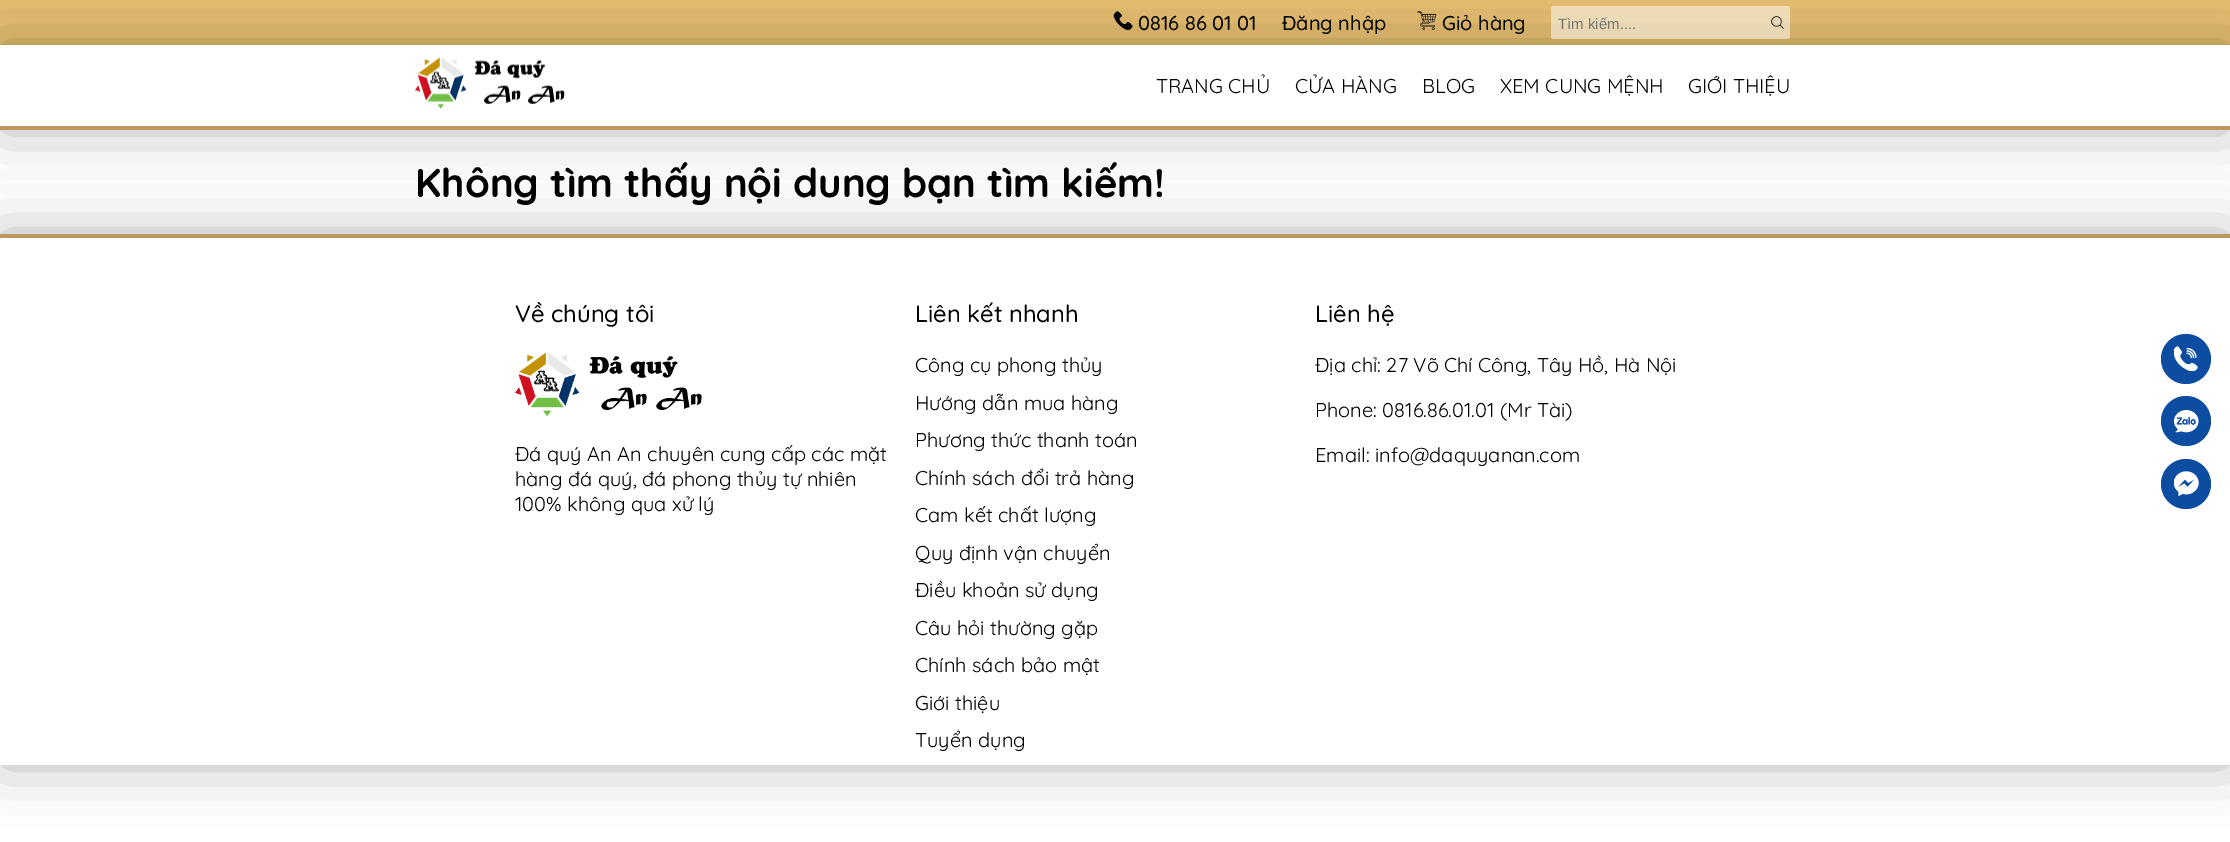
%!PS
<< /PageSize [2230 842] /PageUsesTransparency true >> setpagedevice
/alpha { dup .setfillconstantalpha .setstrokeconstantalpha } def
/roundrect { 5 dict begin { /r /h /w /y /x } { exch def } forall
  x r add y moveto x w add y 2 copy h add r arct x w add y h add x 1 index r arct
  x y h add x y r arct x y 2 copy exch w add exch r arct closepath end } def
/shadow { 12 dict begin { /a /b /q /h /w /y /x } { exch def } forall gsave /was 0 def
  9 -2 -9 { dup b mul 4 div /e exch def 1 sub .425 mul 2.718 exch exp 1 add a .99 .min exch div /now exch def
    1 1 now sub 1 was sub div sub alpha /was now def
    w h .min e 2 mul add 0 gt { x e sub y e sub w e 2 mul add h e 2 mul add
      q e add b .6 mul add w h .min 2 div e add .min 0 .max roundrect fill } if } for grestore end } def
/picture { 5 dict begin { /h /w /y /x /name } { exch def } forall
  gsave x y translate w h scale
  w h 8 [w 0 0 h 0 0] name (r) file false 3 colorimage grestore end } def
0 .pushpdf14devicefilter
0 842 translate 1 -1 scale
4 setmiterlimit
1 setgray
0 0 2230 842 rectfill
0.898 0.741 0.443 setrgbcolor
0 0 2230 45 rectfill
gsave
newpath 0 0 moveto 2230 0 lineto 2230 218 lineto 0 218 lineto closepath 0 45 moveto 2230 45 lineto 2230 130 lineto 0 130 lineto closepath eoclip newpath
0 setgray
0 45 2230 85 0 29 0.29 shadow
grestore
(img1.rgb) 1113 11 20 19 picture
/Quicksand-Medium [20 0 0 -20 0 0] selectfont
0 setgray
1138 30 moveto (0816 86 01 01) show
1282 30 moveto (Đăng nhập) show
(img2.rgb) 1417 11 20 19 picture
1442 30 moveto (Giỏ hàng) show
0.5 alpha
1 setgray
1551 6 239 33 2.5 roundrect fill
/LiberationSans-Regular [15 0 0 -15 0 0] selectfont
1 alpha
0.459 setgray
1558 29 moveto (Tìm kiếm....) show
(img3.rgb) 1771 16 13 13 picture
0.737 0.592 0.369 setrgbcolor
0 126 2230 4 rectfill
(img4.rgb) 415 57 150 52 picture
/Quicksand-Regular [20 0 0 -20 0 0] selectfont
0 setgray
1156 93 moveto (TRANG CHỦ) show
1295 93 moveto (CỬA HÀNG) show
1422 93 moveto (BLOG) show
1500 93 moveto (XEM CUNG MỆNH) show
1688 93 moveto (GIỚI THIỆU) show
gsave
newpath 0 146 moveto 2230 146 lineto 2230 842 lineto 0 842 lineto closepath 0 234 moveto 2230 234 lineto 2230 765 lineto 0 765 lineto closepath eoclip newpath
0 234 2230 531 0 29 0.29 shadow
grestore
/Quicksand-Bold [40 0 0 -40 0 0] selectfont
415 197 moveto (Không tìm thấy nội dung bạn tìm kiếm!) show
0.737 0.592 0.369 setrgbcolor
0 234 2230 4 rectfill
/Quicksand-Medium [23.75 0 0 -23.75 0 0] selectfont
0 setgray
515 322 moveto (Về chúng tôi) show
(img5.rgb) 515 352 187 65 picture
/Quicksand-Regular [20 0 0 -20 0 0] selectfont
515 461 moveto (Đá quý An An chuyên cung cấp các mặt) show
515 486 moveto (hàng đá quý, đá phong thủy tự nhiên) show
515 511 moveto (100% không qua xử lý) show
/Quicksand-Medium [23.75 0 0 -23.75 0 0] selectfont
915 322 moveto (Liên kết nhanh) show
/Quicksand-Regular [20 0 0 -20 0 0] selectfont
915 372 moveto (Công cụ phong thủy) show
915 410 moveto (Hướng dẫn mua hàng) show
915 447 moveto (Phương thức thanh toán) show
915 485 moveto (Chính sách đổi trả hàng) show
915 522 moveto (Cam kết chất lượng) show
915 560 moveto (Quy định vận chuyển) show
915 597 moveto (Điều khoản sử dụng) show
915 635 moveto (Câu hỏi thường gặp) show
915 672 moveto (Chính sách bảo mật) show
915 710 moveto (Giới thiệu) show
915 747 moveto (Tuyển dụng) show
/Quicksand-Medium [23.75 0 0 -23.75 0 0] selectfont
1315 322 moveto (Liên hệ) show
/Quicksand-Regular [20 0 0 -20 0 0] selectfont
1315 372 moveto (Địa chỉ: 27 Võ Chí Công, Tây Hồ, Hà Nội) show
1315 417 moveto (Phone: 0816.86.01.01 \(Mr Tài\)) show
1315 462 moveto (Email: info@daquyanan.com) show
0.047 0.302 0.635 setrgbcolor
newpath 2186 359 25 0 360 arc closepath fill
(img6.rgb) 2174 346 24 25 picture
newpath 2186 421 25 0 360 arc closepath fill
(img7.rgb) 2174 410 25 23 picture
newpath 2186 484 25 0 360 arc closepath fill
(img8.rgb) 2174 471 25 25 picture
.poppdf14devicefilter showpage
